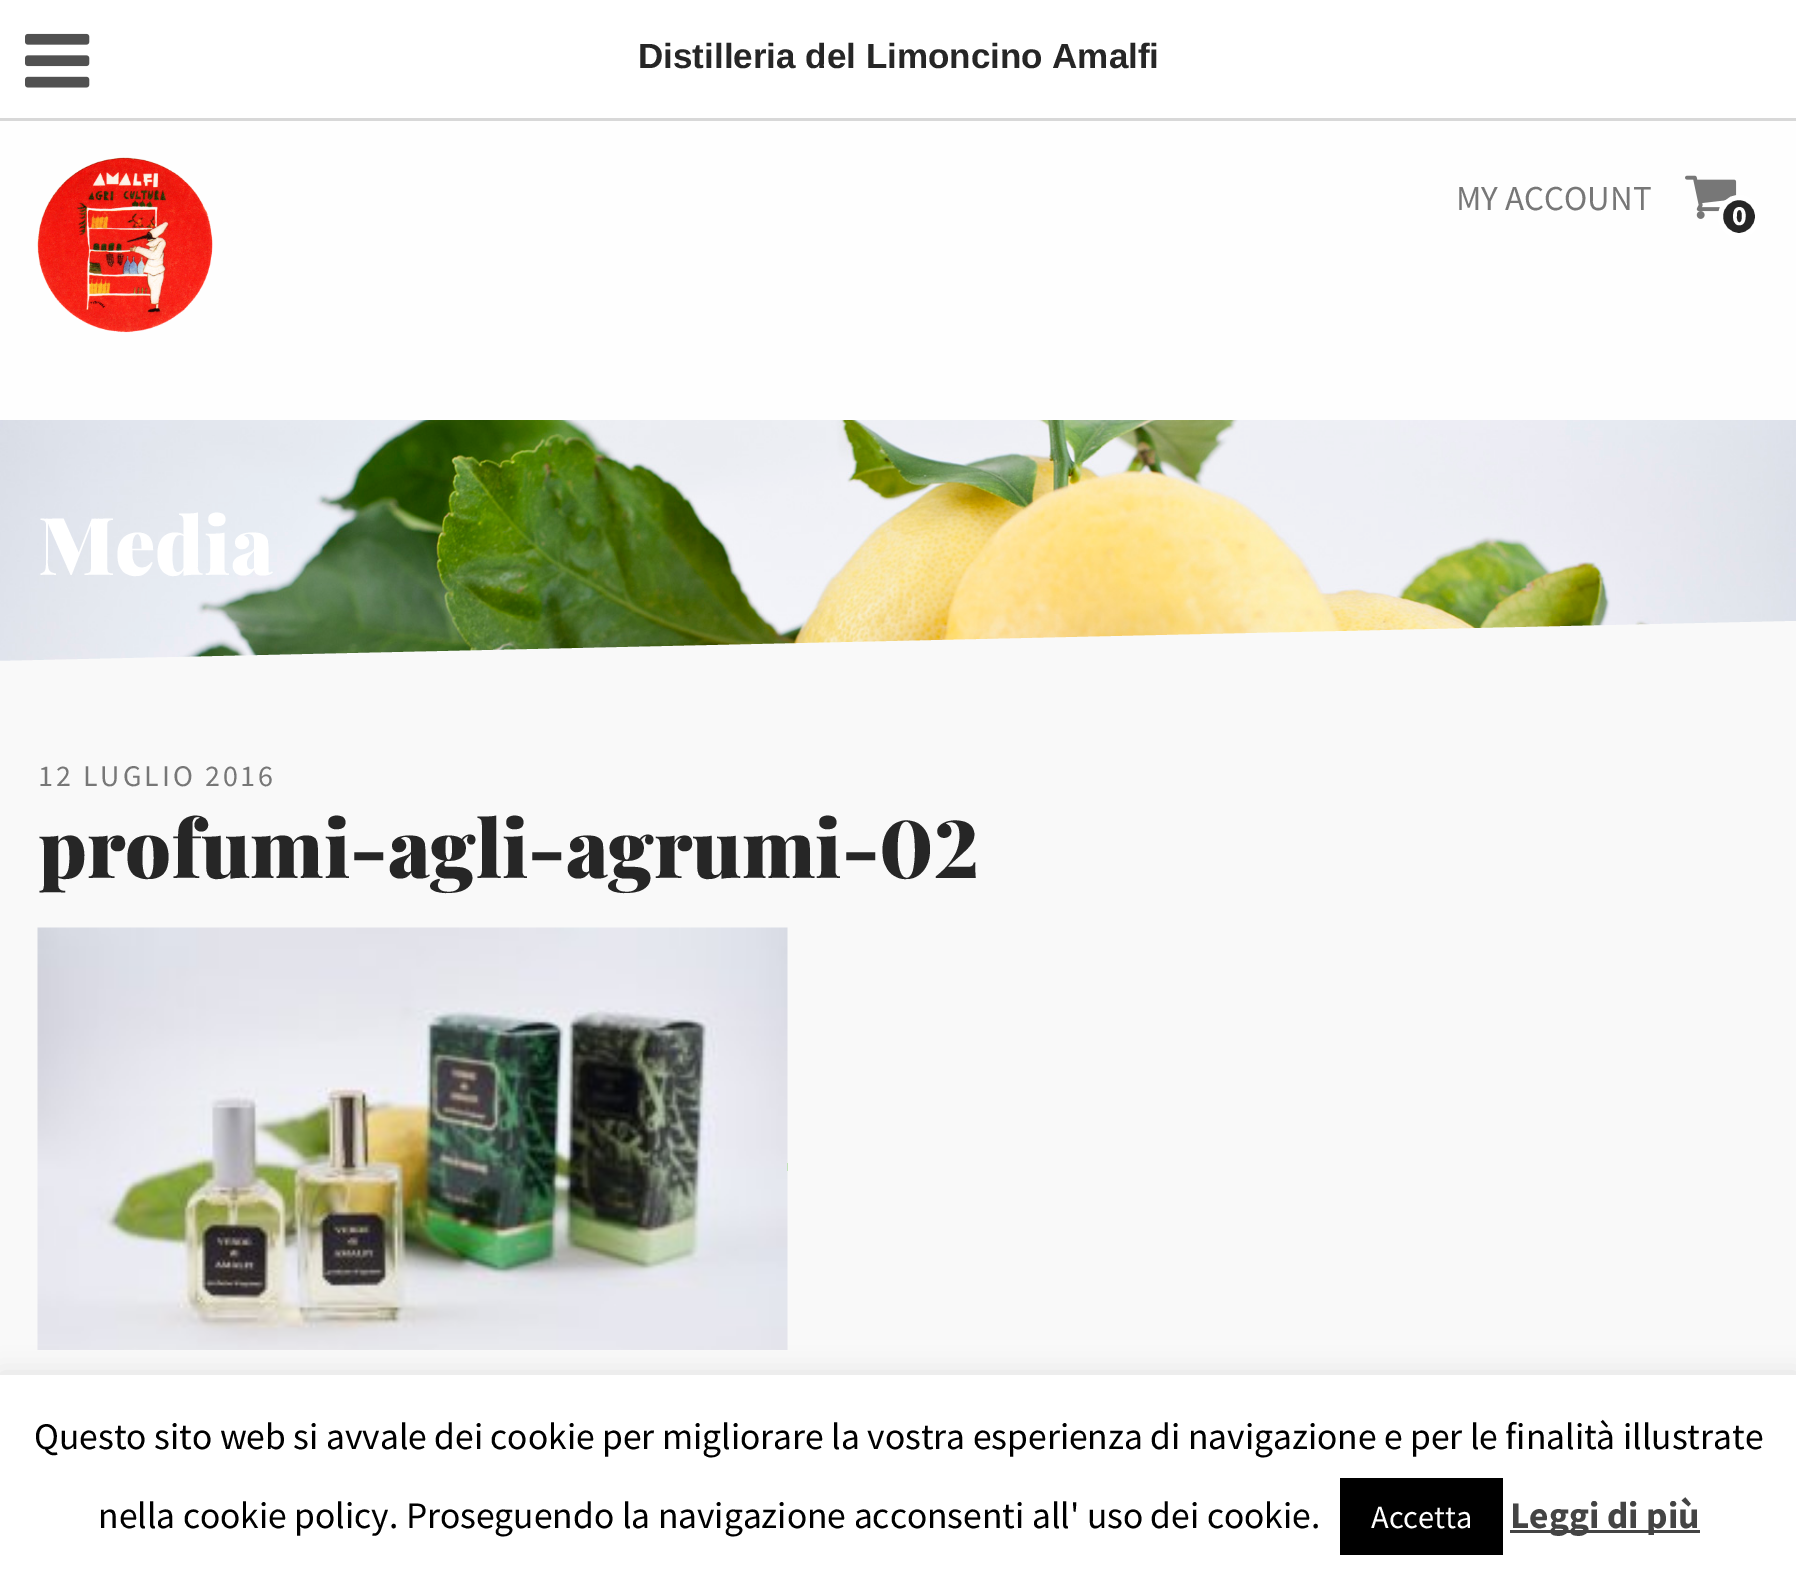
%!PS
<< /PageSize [1796 1584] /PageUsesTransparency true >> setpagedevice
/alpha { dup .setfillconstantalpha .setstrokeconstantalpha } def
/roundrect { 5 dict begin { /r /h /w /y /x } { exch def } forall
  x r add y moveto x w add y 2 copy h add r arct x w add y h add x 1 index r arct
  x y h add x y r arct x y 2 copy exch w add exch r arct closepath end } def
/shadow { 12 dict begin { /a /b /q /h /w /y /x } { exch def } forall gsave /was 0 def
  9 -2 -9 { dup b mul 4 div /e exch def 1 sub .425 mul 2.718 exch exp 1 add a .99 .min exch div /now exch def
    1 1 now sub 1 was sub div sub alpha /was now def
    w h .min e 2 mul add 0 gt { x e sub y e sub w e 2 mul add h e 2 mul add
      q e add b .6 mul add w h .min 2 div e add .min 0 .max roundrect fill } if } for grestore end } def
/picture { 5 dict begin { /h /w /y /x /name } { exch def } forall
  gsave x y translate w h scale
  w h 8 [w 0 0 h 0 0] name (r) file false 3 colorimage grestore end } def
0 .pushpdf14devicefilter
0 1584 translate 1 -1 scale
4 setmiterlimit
0.976 setgray
0 0 1796 1584 rectfill
1 setgray
0 0 1796 118 rectfill
0.847 setgray
0 118 1796 3 rectfill
(img1.rgb) 25 33 65 55 picture
/LiberationSans-Bold [35 0 0 -35 0 0] selectfont
0.149 setgray
638 68 moveto (Distilleria del Limoncino Amalfi) show
0.996 setgray
0 121 1796 299 rectfill
(img2.rgb) 37 157 176 176 picture
/SourceSansPro-Regular [35 0 0 -35 0 0] selectfont
0.467 setgray
1456 210 moveto (MY ACCOUNT) show
(img3.rgb) 1685 175 52 44 picture
0.149 setgray
1720.5 197.5 37 38 18.5 roundrect gsave fill grestore
1 setgray
5 setlinewidth
stroke
/SourceSansPro-Bold [28 0 0 -28 0 0] selectfont
1732 225 moveto -1 0 (0) ashow
(img4.rgb) 0 420 1796 241 picture
/PlayfairDisplay-Black [80 0 0 -80 0 0] selectfont
38 575 moveto (Media) show
gsave
0 420 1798 283 rectclip
0.976 setgray
newpath -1 661 moveto 1796 621 lineto 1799 746 lineto 2 786 lineto closepath fill
grestore
/SourceSansPro-Regular [30 0 0 -30 0 0] selectfont
0.467 setgray
38 786 moveto 3 0 (12 LUGLIO 2016) ashow
/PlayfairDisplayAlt-Black [80 0 0 -80 0 0] selectfont
0.149 setgray
38 878 moveto (profumi-agli-agrumi-02) show
0.627 0.878 0.522 setrgbcolor
787 1163 1 8 rectfill
(img5.rgb) 37 927 751 423 picture
0.675 0.671 0.671 setrgbcolor
0 1373 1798 210 0 12.5 0.3 shadow
1 setgray
0 1375 1796 209 rectfill
/SourceSansPro-Regular [37.5 0 0 -37.5 0 0] selectfont
0 setgray
34 1449 moveto (Questo sito web si avvale dei cookie per migliorare la vostra esperienza di navigazione e per le finalità illustrate) show
98 1528 moveto (nella cookie policy. Proseguendo la navigazione acconsenti all' uso dei cookie.) show
1340 1478 163 77 rectfill
/SourceSansPro-Regular [32.5 0 0 -32.5 0 0] selectfont
1 setgray
1371 1528 moveto (Accetta) show
0.267 setgray
1510 1530 190 3 rectfill
/SourceSansPro-Bold [37.5 0 0 -37.5 0 0] selectfont
1510 1528 moveto (Leggi di più) show
.poppdf14devicefilter showpage
